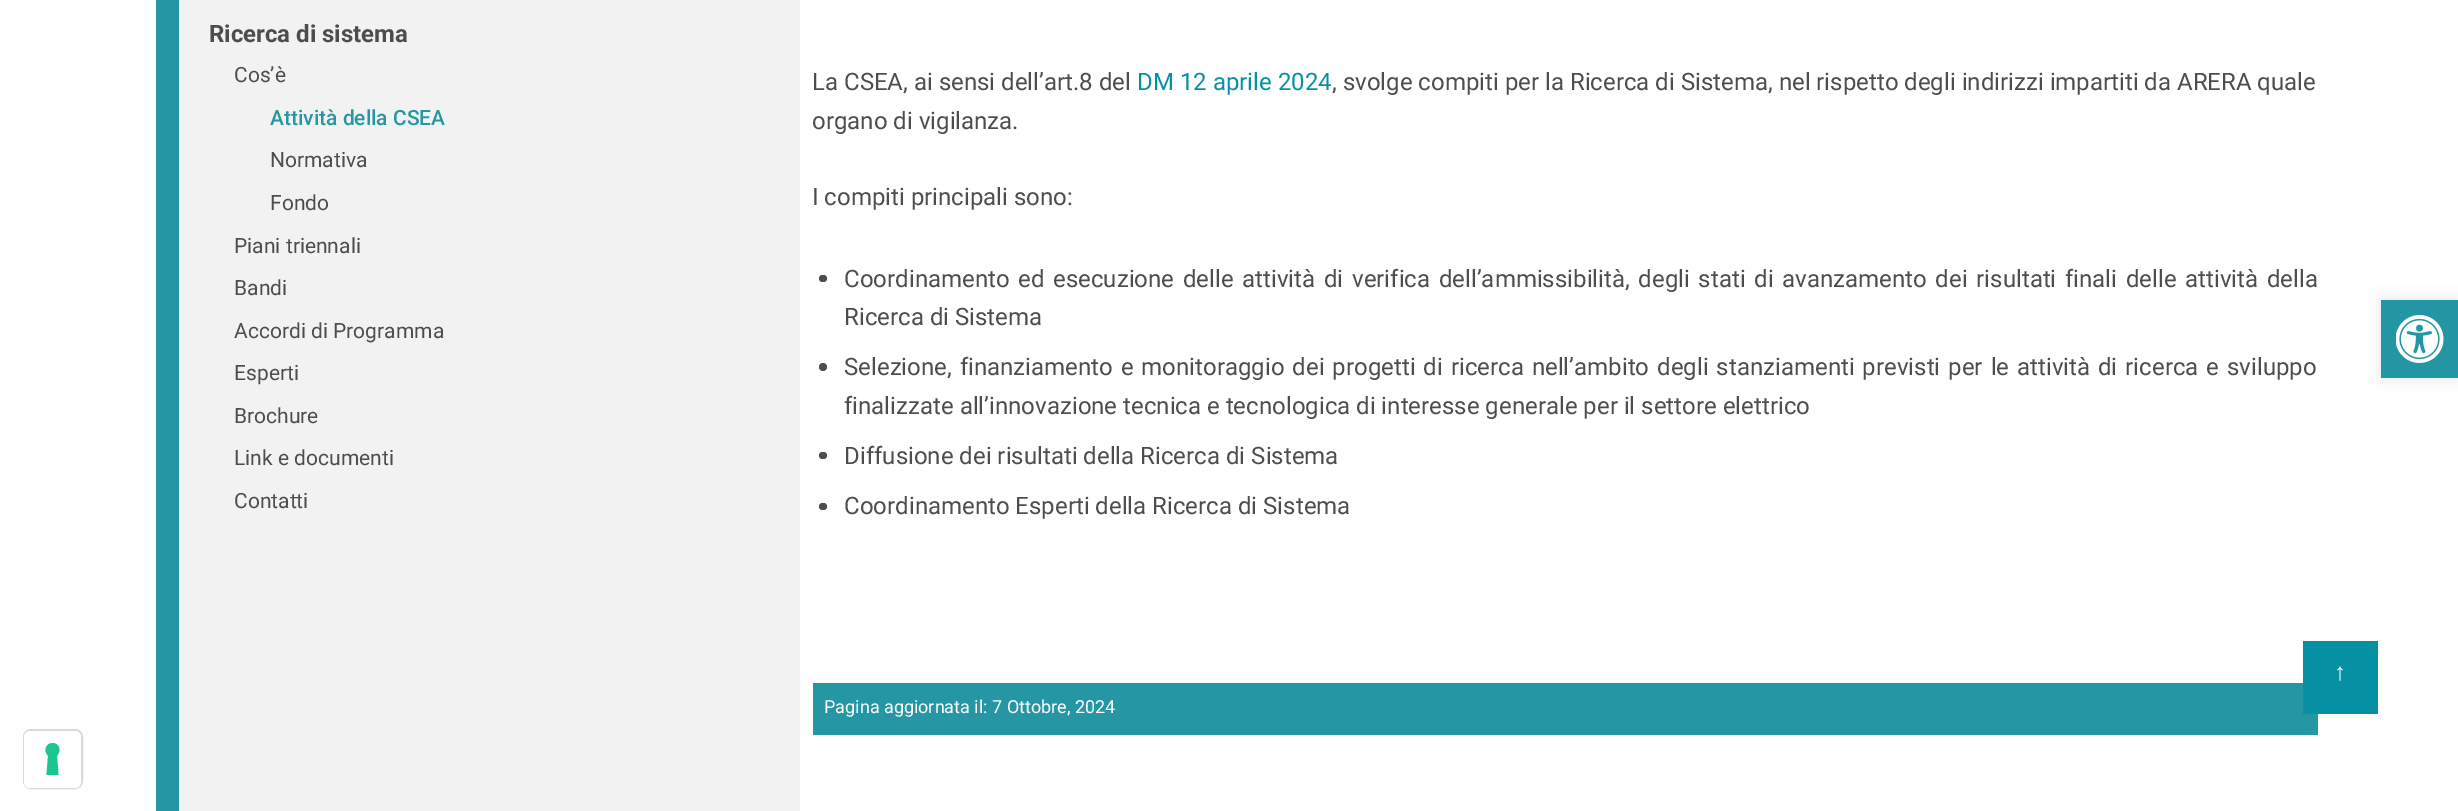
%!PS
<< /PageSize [2458 811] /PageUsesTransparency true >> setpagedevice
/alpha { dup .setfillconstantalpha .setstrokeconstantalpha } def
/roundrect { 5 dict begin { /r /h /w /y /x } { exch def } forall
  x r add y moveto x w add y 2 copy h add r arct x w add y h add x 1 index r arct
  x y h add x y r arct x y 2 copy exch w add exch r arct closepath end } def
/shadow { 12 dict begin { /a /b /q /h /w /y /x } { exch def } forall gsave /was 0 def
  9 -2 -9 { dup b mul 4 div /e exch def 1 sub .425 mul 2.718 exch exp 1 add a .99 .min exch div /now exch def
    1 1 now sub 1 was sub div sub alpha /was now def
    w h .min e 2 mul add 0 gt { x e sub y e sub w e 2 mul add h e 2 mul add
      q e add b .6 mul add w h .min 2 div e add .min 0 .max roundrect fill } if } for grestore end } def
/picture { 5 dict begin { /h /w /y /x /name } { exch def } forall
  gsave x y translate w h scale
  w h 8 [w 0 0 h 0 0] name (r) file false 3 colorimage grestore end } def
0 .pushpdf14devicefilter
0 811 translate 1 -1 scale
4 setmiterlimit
1 setgray
0 0 2458 811 rectfill
0.949 setgray
179 0 621 811 rectfill
0.141 0.588 0.643 setrgbcolor
156 0 23 811 rectfill
/Roboto-Bold [24 0 0 -24 0 0] selectfont
0.302 setgray
209 42 moveto (Ricerca di sistema) show
/Roboto-Regular [21 0 0 -21 0 0] selectfont
234 82 moveto (Cos’è) show
/Roboto-Medium [21 0 0 -21 0 0] selectfont
0.141 0.588 0.643 setrgbcolor
270 125 moveto (Attività della CSEA) show
/Roboto-Regular [21 0 0 -21 0 0] selectfont
0.302 setgray
270 167 moveto (Normativa) show
270 210 moveto (Fondo) show
234 253 moveto (Piani triennali) show
234 295 moveto (Bandi) show
234 338 moveto (Accordi di Programma) show
234 380 moveto (Esperti) show
234 423 moveto (Brochure) show
234 465 moveto (Link e documenti) show
234 508 moveto (Contatti) show
/Roboto-Regular [24 0 0 -24 0 0] selectfont
812 90 moveto (La CSEA, ai sensi dell’art.8 del) show
0.024 0.565 0.639 setrgbcolor
1137 90 moveto (DM 12 aprile 2024) show
0.302 setgray
1332 90 moveto (, svolge compiti per la Ricerca di Sistema, nel rispetto degli indirizzi impartiti da ARERA quale) show
812 129 moveto (organo di vigilanza.) show
812 205 moveto (I compiti principali sono:) show
819 275 8 7 3.5 roundrect fill
844 287 moveto 2.75 0 32 (Coordinamento ed esecuzione delle attività di verifica dell’ammissibilità, degli stati di avanzamento dei risultati finali delle attività della) widthshow
844 325 moveto (Ricerca di Sistema) show
newpath 823 367 4 0 360 arc closepath fill
844 375 moveto 2 0 32 (Selezione, finanziamento e monitoraggio dei progetti di ricerca nell’ambito degli stanziamenti previsti per le attività di ricerca e sviluppo) widthshow
844 414 moveto (finalizzate all’innovazione tecnica e tecnologica di interesse generale per il settore elettrico) show
819 452 8 7 3.5 roundrect fill
844 464 moveto (Diffusione dei risultati della Ricerca di Sistema) show
819 503 8 7 3.5 roundrect fill
844 514 moveto (Coordinamento Esperti della Ricerca di Sistema) show
0.141 0.588 0.643 setrgbcolor
813 683 1505 52 rectfill
/Roboto-Regular [18 0 0 -18 0 0] selectfont
1 setgray
824 713 moveto (Pagina aggiornata il: 7 Ottobre, 2024) show
0.024 0.565 0.639 setrgbcolor
2303 641 75 73 rectfill
/LiberationSerif-Regular [24 0 0 -24 0 0] selectfont
1 setgray
2334 680 moveto (↑) show
0 setgray
2381 300 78 78 0 7.5 0.1 shadow
0.137 0.588 0.639 setrgbcolor
2381 300 77 78 rectfill
(img1.rgb) 2396 315 48 48 picture
0.851 setgray
2 setlinewidth
24 730 58 58 7 roundrect stroke
1 setgray
24 731 57 57 6 roundrect fill
0.11 0.776 0.569 setrgbcolor
newpath 52.5 743 moveto 59 743 62 751 57 755.5 curveto 58.5 775 lineto 46.5 775 lineto 48 755.5 lineto 43 751 46 743 52.5 743 curveto closepath eofill
.poppdf14devicefilter showpage
